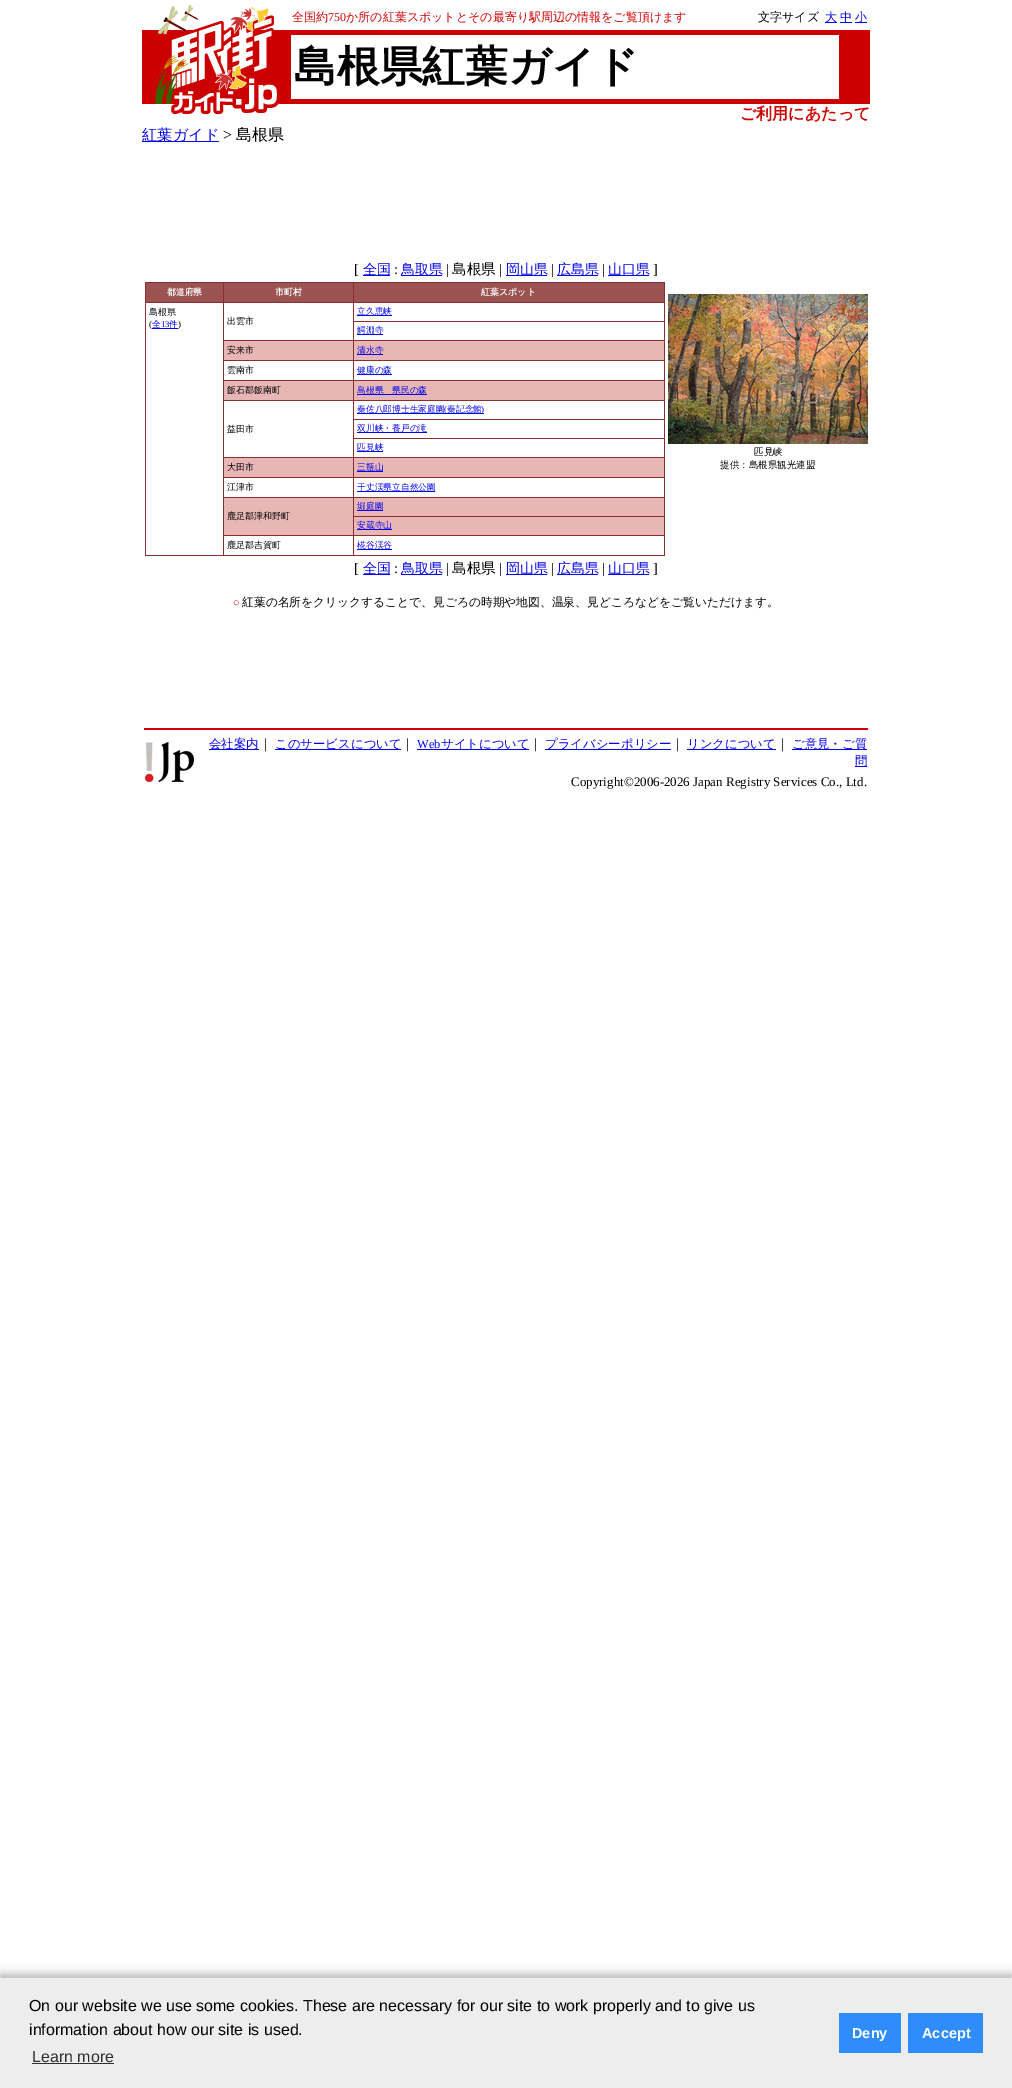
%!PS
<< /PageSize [1012 2088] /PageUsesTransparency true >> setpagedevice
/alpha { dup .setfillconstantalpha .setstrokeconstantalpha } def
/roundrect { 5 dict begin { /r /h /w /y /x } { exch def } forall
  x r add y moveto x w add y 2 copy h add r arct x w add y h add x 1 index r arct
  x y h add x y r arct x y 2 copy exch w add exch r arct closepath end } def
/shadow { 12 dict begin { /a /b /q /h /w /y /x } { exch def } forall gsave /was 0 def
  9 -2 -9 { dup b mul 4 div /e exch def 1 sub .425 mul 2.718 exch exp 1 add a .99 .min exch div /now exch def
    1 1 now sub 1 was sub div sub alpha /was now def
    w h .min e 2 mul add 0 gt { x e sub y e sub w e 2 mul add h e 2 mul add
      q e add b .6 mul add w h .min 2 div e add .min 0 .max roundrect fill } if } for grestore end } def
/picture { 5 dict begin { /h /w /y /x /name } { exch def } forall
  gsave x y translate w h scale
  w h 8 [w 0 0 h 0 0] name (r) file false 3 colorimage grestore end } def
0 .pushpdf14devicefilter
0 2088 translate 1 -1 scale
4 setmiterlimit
1 setgray
0 0 1012 2088 rectfill
(img1.rgb) 159 5 115 25 picture
/WenQuanYiZenHei-Medium [12 0 0 -12 0 0] selectfont
0.8 0 0 setrgbcolor
292 21 moveto (全国約) show
/LiberationSerif-Regular [12 0 0 -12 0 0] selectfont
328 21 moveto (750) show
/WenQuanYiZenHei-Medium [12 0 0 -12 0 0] selectfont
346 21 moveto (か所の紅葉スポットとその最寄り駅周辺の情報をご覧頂けます) show
0 setgray
758 21 moveto (文字サイズ) show
0 0 0.933 setrgbcolor
825 22 12 1 rectfill
825 21 moveto (大) show
840 22 12 1 rectfill
840 21 moveto (中) show
855 22 12 1 rectfill
855 21 moveto (小) show
0.8 0 0 setrgbcolor
142 30 10 74 rectfill
(img2.rgb) 152 30 127 74 picture
279 30 591 74 rectfill
1 setgray
291 35 548 64 rectfill
/WenQuanYiZenHei-Bold [42.75 0 0 -42.75 0 0] selectfont
0 setgray
294 81 moveto (島根県紅葉ガイド) show
(img3.rgb) 171 104 108 10 picture
/WenQuanYiZenHei-Bold [16 0 0 -16 0 0] selectfont
0.8 0 0 setrgbcolor
740 119 moveto (ご利用にあたって) show
0 0 0.933 setrgbcolor
142 141 77 1 rectfill
/WenQuanYiZenHei-Medium [15.25 0 0 -15.25 0 0] selectfont
142 140 moveto (紅葉ガイド) show
/LiberationSerif-Regular [16 0 0 -16 0 0] selectfont
0 setgray
223 140 moveto (>) show
/WenQuanYiZenHei-Medium [16 0 0 -16 0 0] selectfont
236 140 moveto (島根県) show
/LiberationSerif-Regular [14.5 0 0 -14.5 0 0] selectfont
354 274 moveto ([) show
0 0 0.933 setrgbcolor
363 275 27 1 rectfill
/WenQuanYiZenHei-Medium [14 0 0 -14 0 0] selectfont
363 274 moveto (全国) show
/LiberationSerif-Regular [14.5 0 0 -14.5 0 0] selectfont
0 setgray
394 274 moveto (:) show
0 0 0.933 setrgbcolor
401 275 41 1 rectfill
/WenQuanYiZenHei-Medium [14 0 0 -14 0 0] selectfont
401 274 moveto (鳥取県) show
/LiberationSerif-Regular [14.5 0 0 -14.5 0 0] selectfont
0 setgray
446 274 moveto (|) show
/WenQuanYiZenHei-Medium [14.5 0 0 -14.5 0 0] selectfont
452 274 moveto (島根県) show
/LiberationSerif-Regular [14.5 0 0 -14.5 0 0] selectfont
499 274 moveto (|) show
0 0 0.933 setrgbcolor
506 275 41 1 rectfill
/WenQuanYiZenHei-Medium [14 0 0 -14 0 0] selectfont
506 274 moveto (岡山県) show
/LiberationSerif-Regular [14.5 0 0 -14.5 0 0] selectfont
0 setgray
551 274 moveto (|) show
0 0 0.933 setrgbcolor
557 275 41 1 rectfill
/WenQuanYiZenHei-Medium [14 0 0 -14 0 0] selectfont
557 274 moveto (広島県) show
/LiberationSerif-Regular [14.5 0 0 -14.5 0 0] selectfont
0 setgray
602 274 moveto (|) show
0 0 0.933 setrgbcolor
608 275 41 1 rectfill
/WenQuanYiZenHei-Medium [14 0 0 -14 0 0] selectfont
608 274 moveto (山口県) show
/LiberationSerif-Regular [14.5 0 0 -14.5 0 0] selectfont
0 setgray
653 274 moveto (]) show
0.525 0.188 0.184 setrgbcolor
145 282 520 274 rectfill
0.608 0.322 0.318 setrgbcolor
146 283 77 19 rectfill
/WenQuanYiZenHei-Bold [8.75 0 0 -8.75 0 0] selectfont
1 setgray
167 295 moveto (都道府県) show
0.608 0.322 0.318 setrgbcolor
224 283 129 19 rectfill
/WenQuanYiZenHei-Bold [9 0 0 -9 0 0] selectfont
1 setgray
275 295 moveto (市町村) show
0.608 0.322 0.318 setrgbcolor
354 283 310 19 rectfill
1 setgray
481 295 moveto (紅葉スポット) show
146 303 77 252 rectfill
/WenQuanYiZenHei-Medium [9 0 0 -9 0 0] selectfont
0 setgray
149 315 moveto (島根県) show
/LiberationSerif-Regular [9 0 0 -9 0 0] selectfont
149 327 moveto (\() show
/WenQuanYiZenHei-Medium [8.75 0 0 -8.75 0 0] selectfont
0 0 0.933 setrgbcolor
152 327 moveto (全) show
/LiberationSerif-Regular [8.75 0 0 -8.75 0 0] selectfont
161 327 moveto (13) show
152 328 26 1 rectfill
/WenQuanYiZenHei-Medium [8.75 0 0 -8.75 0 0] selectfont
169 327 moveto (件) show
/LiberationSerif-Regular [9 0 0 -9 0 0] selectfont
0 setgray
178 327 moveto (\)) show
1 setgray
224 303 129 37 rectfill
/WenQuanYiZenHei-Medium [9 0 0 -9 0 0] selectfont
0 setgray
227 324 moveto (出雲市) show
1 setgray
354 303 310 18 rectfill
0 0 0.933 setrgbcolor
357 315 35 1 rectfill
/WenQuanYiZenHei-Medium [8.75 0 0 -8.75 0 0] selectfont
357 314 moveto (立久恵峡) show
1 setgray
354 322 310 18 rectfill
0 0 0.933 setrgbcolor
357 334 26 1 rectfill
357 333 moveto (鰐淵寺) show
0.906 0.714 0.71 setrgbcolor
224 341 129 19 rectfill
/WenQuanYiZenHei-Medium [9 0 0 -9 0 0] selectfont
0 setgray
227 353 moveto (安来市) show
0.906 0.714 0.71 setrgbcolor
354 341 310 19 rectfill
0 0 0.933 setrgbcolor
357 354 26 1 rectfill
/WenQuanYiZenHei-Medium [8.75 0 0 -8.75 0 0] selectfont
357 353 moveto (清水寺) show
1 setgray
224 361 129 19 rectfill
/WenQuanYiZenHei-Medium [9 0 0 -9 0 0] selectfont
0 setgray
227 373 moveto (雲南市) show
1 setgray
354 361 310 19 rectfill
0 0 0.933 setrgbcolor
357 374 35 1 rectfill
/WenQuanYiZenHei-Medium [8.75 0 0 -8.75 0 0] selectfont
357 373 moveto (健康の森) show
0.906 0.714 0.71 setrgbcolor
224 381 129 19 rectfill
/WenQuanYiZenHei-Medium [9 0 0 -9 0 0] selectfont
0 setgray
227 393 moveto (飯石郡飯南町) show
0.906 0.714 0.71 setrgbcolor
354 381 310 19 rectfill
0 0 0.933 setrgbcolor
357 394 70 1 rectfill
/WenQuanYiZenHei-Medium [8.75 0 0 -8.75 0 0] selectfont
357 393 moveto (島根県　県民の森) show
1 setgray
354 401 310 18 rectfill
0 0 0.933 setrgbcolor
357 413 127 1 rectfill
357 412 moveto (秦佐八郎博士生家庭園) show
/LiberationSerif-Regular [8.75 0 0 -8.75 0 0] selectfont
444 412 moveto (\() show
/WenQuanYiZenHei-Medium [8.75 0 0 -8.75 0 0] selectfont
447 412 moveto (秦記念館) show
/LiberationSerif-Regular [8.75 0 0 -8.75 0 0] selectfont
481 412 moveto (\)) show
1 setgray
224 401 129 56 rectfill
/WenQuanYiZenHei-Medium [9 0 0 -9 0 0] selectfont
0 setgray
227 432 moveto (益田市) show
1 setgray
354 420 310 18 rectfill
0 0 0.933 setrgbcolor
357 432 70 1 rectfill
/WenQuanYiZenHei-Medium [8.75 0 0 -8.75 0 0] selectfont
357 431 moveto (双川峡・養戸の滝) show
1 setgray
354 439 310 18 rectfill
0 0 0.933 setrgbcolor
357 451 26 1 rectfill
357 450 moveto (匹見峡) show
0.906 0.714 0.71 setrgbcolor
224 458 129 19 rectfill
/WenQuanYiZenHei-Medium [9 0 0 -9 0 0] selectfont
0 setgray
227 470 moveto (大田市) show
0.906 0.714 0.71 setrgbcolor
354 458 310 19 rectfill
0 0 0.933 setrgbcolor
357 471 26 1 rectfill
/WenQuanYiZenHei-Medium [8.75 0 0 -8.75 0 0] selectfont
357 470 moveto (三瓶山) show
1 setgray
224 478 129 19 rectfill
/WenQuanYiZenHei-Medium [9 0 0 -9 0 0] selectfont
0 setgray
227 490 moveto (江津市) show
1 setgray
354 478 310 19 rectfill
0 0 0.933 setrgbcolor
357 491 78 1 rectfill
/WenQuanYiZenHei-Medium [8.75 0 0 -8.75 0 0] selectfont
357 490 moveto (千丈渓県立自然公園) show
0.906 0.714 0.71 setrgbcolor
354 498 310 18 rectfill
0 0 0.933 setrgbcolor
357 510 26 1 rectfill
357 509 moveto (堀庭園) show
0.906 0.714 0.71 setrgbcolor
224 498 129 37 rectfill
/WenQuanYiZenHei-Medium [9 0 0 -9 0 0] selectfont
0 setgray
227 519 moveto (鹿足郡津和野町) show
0.906 0.714 0.71 setrgbcolor
354 517 310 18 rectfill
0 0 0.933 setrgbcolor
357 529 35 1 rectfill
/WenQuanYiZenHei-Medium [8.75 0 0 -8.75 0 0] selectfont
357 528 moveto (安蔵寺山) show
1 setgray
224 536 129 19 rectfill
/WenQuanYiZenHei-Medium [9 0 0 -9 0 0] selectfont
0 setgray
227 548 moveto (鹿足郡吉賀町) show
1 setgray
354 536 310 19 rectfill
0 0 0.933 setrgbcolor
357 549 35 1 rectfill
/WenQuanYiZenHei-Medium [8.75 0 0 -8.75 0 0] selectfont
357 548 moveto (椛谷渓谷) show
(img4.rgb) 668 294 200 150 picture
/WenQuanYiZenHei-Medium [9.5 0 0 -9.5 0 0] selectfont
0 setgray
754 455 moveto (匹見峡) show
720 468 moveto (提供：島根県観光連盟) show
/LiberationSerif-Regular [14.5 0 0 -14.5 0 0] selectfont
354 573 moveto ([) show
0 0 0.933 setrgbcolor
363 574 27 1 rectfill
/WenQuanYiZenHei-Medium [14 0 0 -14 0 0] selectfont
363 573 moveto (全国) show
/LiberationSerif-Regular [14.5 0 0 -14.5 0 0] selectfont
0 setgray
394 573 moveto (:) show
0 0 0.933 setrgbcolor
401 574 41 1 rectfill
/WenQuanYiZenHei-Medium [14 0 0 -14 0 0] selectfont
401 573 moveto (鳥取県) show
/LiberationSerif-Regular [14.5 0 0 -14.5 0 0] selectfont
0 setgray
446 573 moveto (|) show
/WenQuanYiZenHei-Medium [14.5 0 0 -14.5 0 0] selectfont
452 573 moveto (島根県) show
/LiberationSerif-Regular [14.5 0 0 -14.5 0 0] selectfont
499 573 moveto (|) show
0 0 0.933 setrgbcolor
506 574 41 1 rectfill
/WenQuanYiZenHei-Medium [14 0 0 -14 0 0] selectfont
506 573 moveto (岡山県) show
/LiberationSerif-Regular [14.5 0 0 -14.5 0 0] selectfont
0 setgray
551 573 moveto (|) show
0 0 0.933 setrgbcolor
557 574 41 1 rectfill
/WenQuanYiZenHei-Medium [14 0 0 -14 0 0] selectfont
557 573 moveto (広島県) show
/LiberationSerif-Regular [14.5 0 0 -14.5 0 0] selectfont
0 setgray
602 573 moveto (|) show
0 0 0.933 setrgbcolor
608 574 41 1 rectfill
/WenQuanYiZenHei-Medium [14 0 0 -14 0 0] selectfont
608 573 moveto (山口県) show
/LiberationSerif-Regular [14.5 0 0 -14.5 0 0] selectfont
0 setgray
653 573 moveto (]) show
/LiberationSerif-Bold [11 0 0 -11 0 0] selectfont
0.8 0 0 setrgbcolor
233 606 moveto (○) show
/WenQuanYiZenHei-Medium [11.75 0 0 -11.75 0 0] selectfont
0 setgray
242 606 moveto (紅葉の名所をクリックすることで、見ごろの時期や地図、温泉、見どころなどをご覧いただけます。) show
0.8 0 0 setrgbcolor
144 728 724 2 rectfill
(img5.rgb) 145 742 49 40 picture
0 0 0.933 setrgbcolor
209 749 50 1 rectfill
/WenQuanYiZenHei-Medium [12.4 0 0 -12.4 0 0] selectfont
209 748 moveto (会社案内) show
/WenQuanYiZenHei-Medium [13 0 0 -13 0 0] selectfont
0 setgray
259 748 moveto (｜) show
0 0 0.933 setrgbcolor
275 749 126 1 rectfill
/WenQuanYiZenHei-Medium [12.4 0 0 -12.4 0 0] selectfont
275 748 moveto (このサービスについて) show
/WenQuanYiZenHei-Medium [13 0 0 -13 0 0] selectfont
0 setgray
401 748 moveto (｜) show
/LiberationSerif-Regular [12.4 0 0 -12.4 0 0] selectfont
0 0 0.933 setrgbcolor
417 748 moveto (Web) show
417 749 112 1 rectfill
/WenQuanYiZenHei-Medium [12.4 0 0 -12.4 0 0] selectfont
441 748 moveto (サイトについて) show
/WenQuanYiZenHei-Medium [13 0 0 -13 0 0] selectfont
0 setgray
529 748 moveto (｜) show
0 0 0.933 setrgbcolor
545 749 126 1 rectfill
/WenQuanYiZenHei-Medium [12.4 0 0 -12.4 0 0] selectfont
545 748 moveto (プライバシーポリシー) show
/WenQuanYiZenHei-Medium [13 0 0 -13 0 0] selectfont
0 setgray
671 748 moveto (｜) show
0 0 0.933 setrgbcolor
687 749 89 1 rectfill
/WenQuanYiZenHei-Medium [12.4 0 0 -12.4 0 0] selectfont
687 748 moveto (リンクについて) show
/WenQuanYiZenHei-Medium [13 0 0 -13 0 0] selectfont
0 setgray
776 748 moveto (｜) show
0 0 0.933 setrgbcolor
792 749 75 1 rectfill
/WenQuanYiZenHei-Medium [12.4 0 0 -12.4 0 0] selectfont
792 748 moveto (ご意見・ご質) show
855 766 12 1 rectfill
855 765 moveto (問) show
/LiberationSerif-Regular [13 0 0 -13 0 0] selectfont
0 setgray
571 786 moveto (Copyright©2006-2026 Japan Registry Services Co., Ltd.) show
0 1974 1012 110 0 5 0.3 shadow
0.929 setgray
0 1978 1012 110 rectfill
/LiberationSans-Regular [16 0 0 -16 0 0] selectfont
0 setgray
29 2011 moveto (On our website we use some cookies. These are necessary for our site to work properly and to give us) show
29 2035 moveto (information about how our site is used.) show
0.184 setgray
32 2062 moveto (Learn more) show
32 2063 82 1 rectfill
0.184 0.549 0.984 setrgbcolor
839 2013 62 40 rectfill
/LiberationSans-Bold [14.5 0 0 -14.5 0 0] selectfont
1 setgray
852 2038 moveto (Deny) show
0.184 0.549 0.984 setrgbcolor
908 2013 75 40 rectfill
1 setgray
922 2038 moveto (Accept) show
.poppdf14devicefilter showpage
